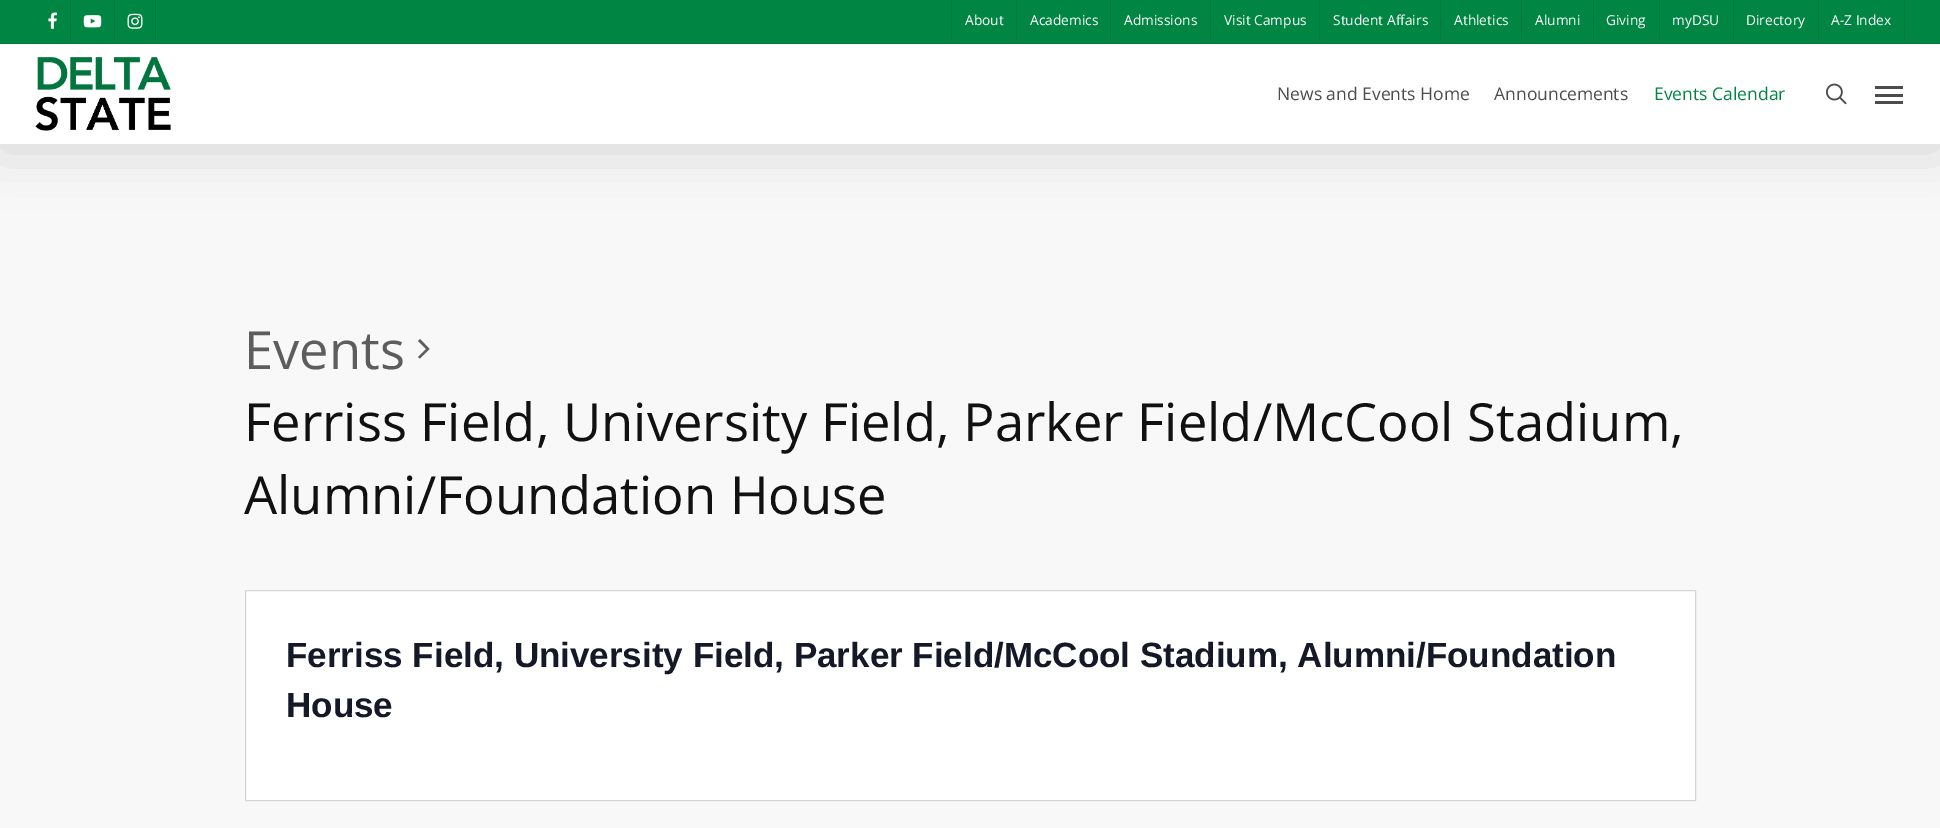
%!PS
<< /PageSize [1940 828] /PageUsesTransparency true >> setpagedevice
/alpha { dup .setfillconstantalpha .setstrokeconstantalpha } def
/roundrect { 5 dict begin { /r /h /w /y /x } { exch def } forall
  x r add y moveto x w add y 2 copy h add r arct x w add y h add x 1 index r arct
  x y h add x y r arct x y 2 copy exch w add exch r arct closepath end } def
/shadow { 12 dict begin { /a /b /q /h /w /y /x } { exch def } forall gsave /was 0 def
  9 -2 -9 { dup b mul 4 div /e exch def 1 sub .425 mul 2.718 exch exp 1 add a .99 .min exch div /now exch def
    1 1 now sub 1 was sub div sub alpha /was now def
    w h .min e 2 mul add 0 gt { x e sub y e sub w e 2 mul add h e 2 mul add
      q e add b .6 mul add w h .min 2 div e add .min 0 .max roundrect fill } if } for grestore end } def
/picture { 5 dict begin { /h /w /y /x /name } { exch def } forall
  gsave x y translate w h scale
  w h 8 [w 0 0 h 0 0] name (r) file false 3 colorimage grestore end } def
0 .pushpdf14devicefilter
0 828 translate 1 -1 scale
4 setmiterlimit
0.973 setgray
0 0 1940 828 rectfill
0 setgray
0 4 1940 144 0 28 0.15 shadow
1 setgray
0 44 1940 100 rectfill
0 0.522 0.259 setrgbcolor
0 0 1940 43 rectfill
0 0.471 0.231 setrgbcolor
0 43 1940 1 rectfill
(img1.rgb) 48 12 9 17 picture
70 0 1 40 rectfill
(img2.rgb) 83 15 19 13 picture
155 0 1 40 rectfill
114 0 1 40 rectfill
(img3.rgb) 127 13 16 16 picture
951 0 1 39 rectfill
/OpenSans-Regular [13.75 0 0 -13.75 0 0] selectfont
1 setgray
965 25 moveto (About) show
0 0.471 0.231 setrgbcolor
1016 0 1 39 rectfill
1 setgray
1030 25 moveto (Academics) show
0 0.471 0.231 setrgbcolor
1110 0 1 39 rectfill
1 setgray
1124 25 moveto (Admissions) show
0 0.471 0.231 setrgbcolor
1210 0 1 39 rectfill
1 setgray
1224 25 moveto (Visit Campus) show
0 0.471 0.231 setrgbcolor
1319 0 1 39 rectfill
1 setgray
1333 25 moveto (Student Affairs) show
0 0.471 0.231 setrgbcolor
1440 0 1 39 rectfill
1 setgray
1454 25 moveto (Athletics) show
0 0.471 0.231 setrgbcolor
1521 0 1 39 rectfill
1 setgray
1535 25 moveto (Alumni) show
0 0.471 0.231 setrgbcolor
1593 0 1 39 rectfill
1 setgray
1606 25 moveto (Giving) show
0 0.471 0.231 setrgbcolor
1659 0 1 39 rectfill
1 setgray
1672 25 moveto (myDSU) show
0 0.471 0.231 setrgbcolor
1733 0 1 39 rectfill
1 setgray
1746 25 moveto (Directory) show
0 0.471 0.231 setrgbcolor
1904 0 1 39 rectfill
1818 0 1 39 rectfill
1 setgray
1831 25 moveto (A-Z Index) show
(img4.rgb) 35 57 136 74 picture
/OpenSans-Regular [17.5 0 0 -17.5 0 0] selectfont
0.298 0.298 0.306 setrgbcolor
1277 100 moveto (News and Events Home) show
1494 100 moveto (Announcements) show
0 0.522 0.259 setrgbcolor
1654 100 moveto (Events Calendar) show
(img5.rgb) 1826 83 21 22 picture
0.298 0.298 0.306 setrgbcolor
1875 86 28 3 rectfill
1875 101 28 3 rectfill
1875 94 28 3 rectfill
/OpenSans-Regular [52.5 0 0 -52.5 0 0] selectfont
0.365 setgray
244 369 moveto (Events) show
newpath 418 341 moveto 420 339 lineto 429.5 349 lineto 420 358.5 lineto 418 357 lineto 426 349 lineto closepath fill
0.067 setgray
244 441 moveto (Ferriss Field, University Field, Parker Field/McCool Stadium,) show
244 514 moveto (Alumni/Foundation House) show
1 setgray
newpath 245.5 590.5 moveto 1695.5 590.5 lineto 1695.5 800.5 lineto 245.5 800.5 lineto closepath gsave fill grestore
0.835 setgray
stroke
/LiberationSans-Bold [35 0 0 -35 0 0] selectfont
0.078 0.094 0.153 setrgbcolor
286 667 moveto (Ferriss Field, University Field, Parker Field/McCool Stadium, Alumni/Foundation) show
286 717 moveto (House) show
.poppdf14devicefilter showpage
